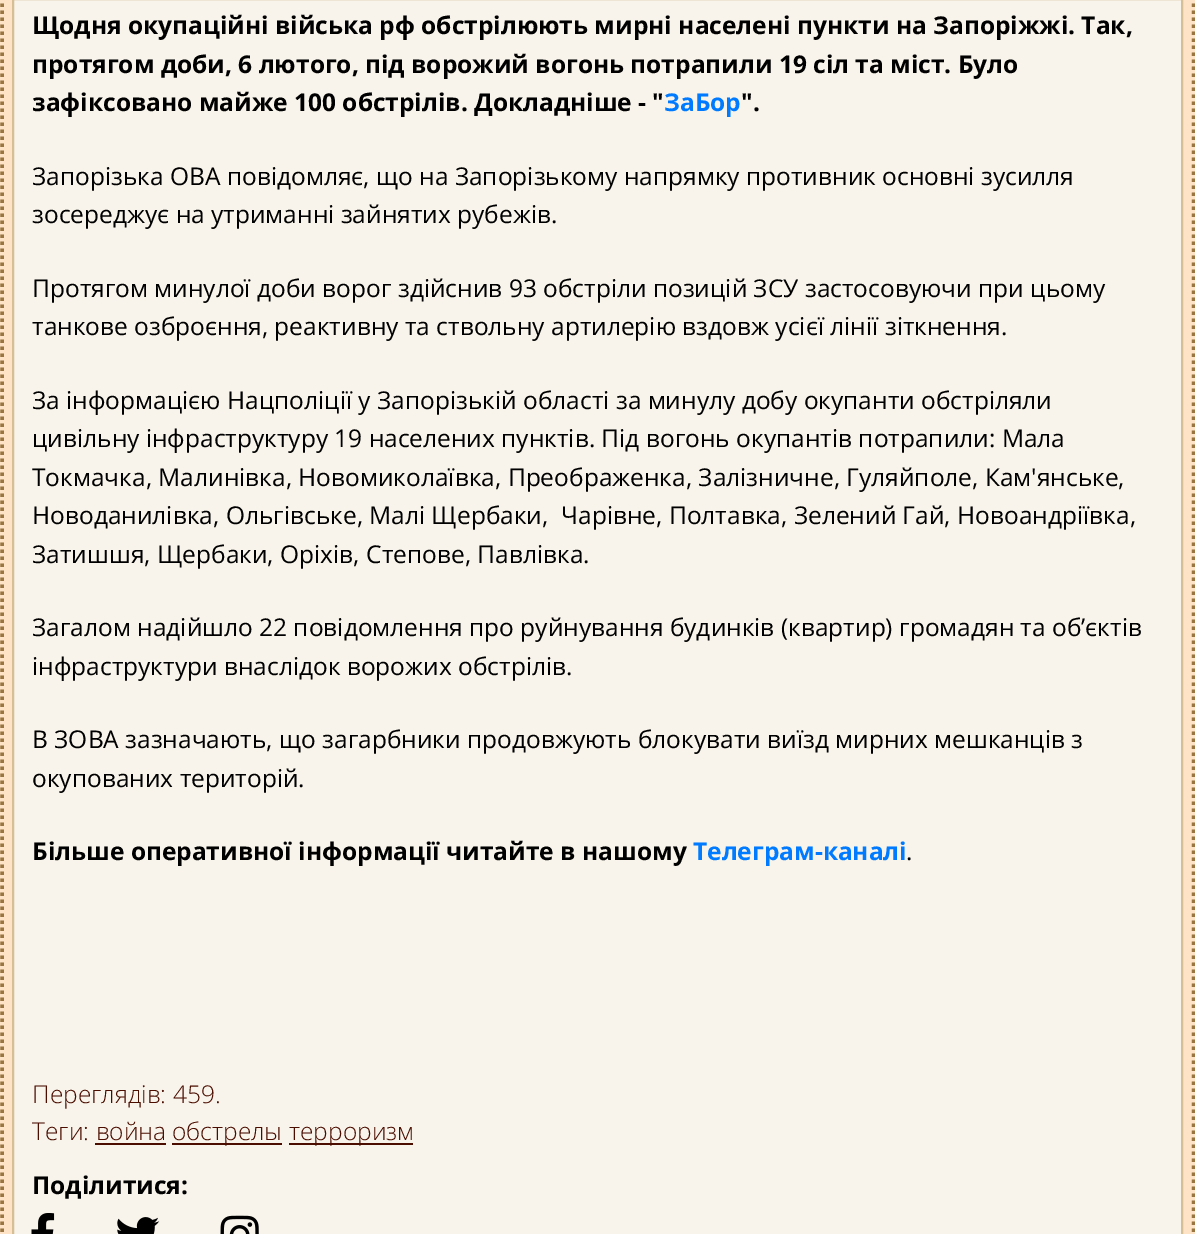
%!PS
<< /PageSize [1195 1234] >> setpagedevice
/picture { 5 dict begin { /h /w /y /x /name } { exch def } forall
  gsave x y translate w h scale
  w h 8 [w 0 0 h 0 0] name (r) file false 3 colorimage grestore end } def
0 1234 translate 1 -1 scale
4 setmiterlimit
0.996 0.89 0.78 setrgbcolor
0 0 1195 1234 rectfill
0.6 0.459 0.259 setrgbcolor
3.5 setlinewidth
[3.5 3.5] 0 setdash
newpath 1193.5 -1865.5 moveto 1193.5 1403.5 lineto stroke
newpath 2 -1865.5 moveto 2 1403.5 lineto stroke
0.973 0.957 0.922 setrgbcolor
newpath 13 -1 moveto 1182 -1 lineto 1182 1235 lineto 13 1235 lineto closepath gsave fill grestore
0.839 0.745 0.584 setrgbcolor
2 setlinewidth
[] 0 setdash
stroke
/OpenSans-Bold [24.5 0 0 -24.5 0 0] selectfont
0 setgray
32 34 moveto (Щодня окупаційні війська рф обстрілюють мирні населені пункти на Запоріжжі. Так,) show
32 73 moveto (протягом доби, 6 лютого, під ворожий вогонь потрапили 19 сіл та міст. Було) show
32 111 moveto (зафіксовано майже 100 обстрілів. Докладніше - ") show
0 0.482 1 setrgbcolor
664 111 moveto (ЗаБор) show
0 setgray
741 111 moveto (".) show
/OpenSans-Regular [24.5 0 0 -24.5 0 0] selectfont
32 185 moveto (Запорізька ОВА повідомляє, що на Запорізькому напрямку противник основні зусилля) show
32 223 moveto (зосереджує на утриманні зайнятих рубежів.) show
32 297 moveto (Протягом минулої доби ворог здійснив 93 обстріли позицій ЗСУ застосовуючи при цьому) show
32 335 moveto (танкове озброєння, реактивну та ствольну артилерію вздовж усієї лінії зіткнення.) show
32 409 moveto (За інформацією Нацполіції у Запорізькій області за минулу добу окупанти обстріляли) show
32 447 moveto (цивільну інфраструктуру 19 населених пунктів. Під вогонь окупантів потрапили: Мала) show
32 486 moveto (Токмачка, Малинівка, Новомиколаївка, Преображенка, Залізничне, Гуляйполе, Кам'янське,) show
32 524 moveto (Новоданилівка, Ольгівське, Малі Щербаки,  Чарівне, Полтавка, Зелений Гай, Новоандріївка,) show
32 563 moveto (Затишшя, Щербаки, Оріхів, Степове, Павлівка.) show
32 636 moveto (Загалом надійшло 22 повідомлення про руйнування будинків \(квартир\) громадян та об’єктів) show
32 675 moveto (інфраструктури внаслідок ворожих обстрілів.) show
32 748 moveto (В ЗОВА зазначають, що загарбники продовжують блокувати виїзд мирних мешканців з) show
32 787 moveto (окупованих територій.) show
/OpenSans-Bold [24.5 0 0 -24.5 0 0] selectfont
32 860 moveto (Більше оперативної інформації читайте в нашому) show
0 0.482 1 setrgbcolor
693 860 moveto (Телеграм-каналі) show
/OpenSans-Regular [24.5 0 0 -24.5 0 0] selectfont
0 setgray
906 860 moveto (.) show
/OpenSans-Light [24.5 0 0 -24.5 0 0] selectfont
0.29 0.051 0 setrgbcolor
32 1103 moveto (Переглядів: 459.) show
32 1140 moveto (Теги: война) show
172 1143 110 2 rectfill
172 1140 moveto (обстрелы) show
289 1143 124 2 rectfill
289 1140 moveto (терроризм) show
95 1143 71 2 rectfill
/OpenSans-Bold [24.5 0 0 -24.5 0 0] selectfont
0 setgray
32 1194 moveto (Поділитися:) show
(img1.rgb) 31 1213 24 21 picture
(img2.rgb) 117 1217 43 17 picture
(img3.rgb) 220 1215 39 19 picture
showpage
